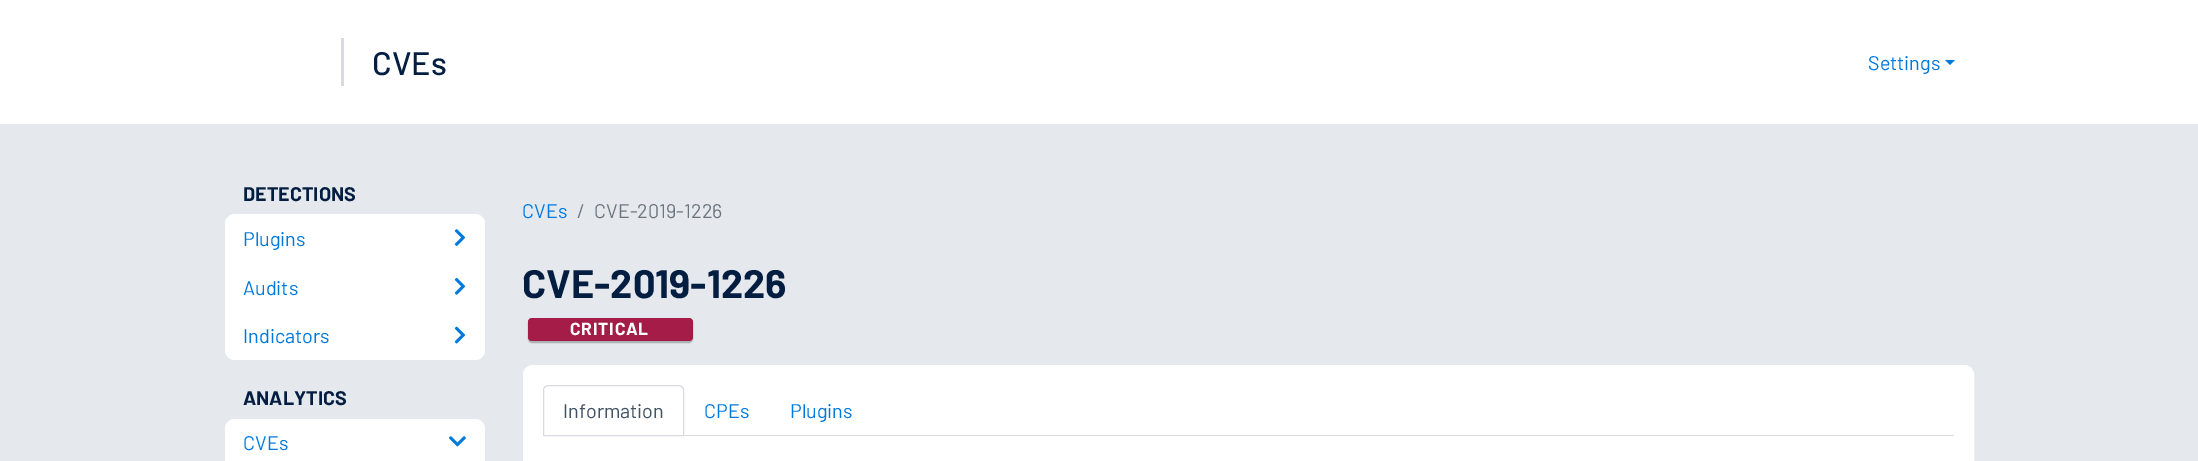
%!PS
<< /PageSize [2198 461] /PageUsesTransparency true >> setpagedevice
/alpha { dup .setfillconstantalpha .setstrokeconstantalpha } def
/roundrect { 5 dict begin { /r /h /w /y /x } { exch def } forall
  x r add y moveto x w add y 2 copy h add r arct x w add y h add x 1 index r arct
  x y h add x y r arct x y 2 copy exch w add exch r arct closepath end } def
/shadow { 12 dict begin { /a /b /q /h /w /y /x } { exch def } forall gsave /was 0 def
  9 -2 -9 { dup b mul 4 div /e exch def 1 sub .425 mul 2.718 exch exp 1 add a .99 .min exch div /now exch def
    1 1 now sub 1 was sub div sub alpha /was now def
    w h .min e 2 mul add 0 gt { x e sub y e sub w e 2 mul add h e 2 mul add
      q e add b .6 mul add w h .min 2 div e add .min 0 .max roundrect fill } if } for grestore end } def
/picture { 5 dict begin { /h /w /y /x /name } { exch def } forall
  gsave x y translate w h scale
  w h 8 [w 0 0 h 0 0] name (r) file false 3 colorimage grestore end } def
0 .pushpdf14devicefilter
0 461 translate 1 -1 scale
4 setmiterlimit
1 setgray
0 0 2198 461 rectfill
0.851 0.859 0.878 setrgbcolor
341 38 3 48 rectfill
/Barlow-Medium [32.5 0 0 -32.5 0 0] selectfont
0.016 0.118 0.259 setrgbcolor
372 75 moveto (CVEs) show
/Barlow-Regular [19.75 0 0 -19.75 0 0] selectfont
0 0.475 0.867 setrgbcolor
1868 70 moveto (Settings) show
newpath 1945 60 moveto 1955 60 lineto 1950 65 lineto closepath fill
0.898 0.914 0.929 setrgbcolor
0 124 2198 337 rectfill
/Barlow-Bold [19.75 0 0 -19.75 0 0] selectfont
0.016 0.118 0.259 setrgbcolor
243 201 moveto (DETECTIONS) show
1 setgray
225 214 260 146 10 roundrect fill
/Barlow-Regular [19.75 0 0 -19.75 0 0] selectfont
0 0.475 0.867 setrgbcolor
243 246 moveto (Plugins) show
(img1.rgb) 454 229 12 17 picture
243 295 moveto (Audits) show
(img2.rgb) 454 277 12 18 picture
243 343 moveto (Indicators) show
(img3.rgb) 454 326 12 18 picture
/Barlow-Bold [19.75 0 0 -19.75 0 0] selectfont
0.016 0.118 0.259 setrgbcolor
243 405 moveto (ANALYTICS) show
1 setgray
225 419 260 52 10 roundrect fill
/Barlow-Regular [19.75 0 0 -19.75 0 0] selectfont
0 0.475 0.867 setrgbcolor
243 450 moveto (CVEs) show
(img4.rgb) 449 436 17 11 picture
522 218 moveto (CVEs) show
0.424 0.459 0.49 setrgbcolor
577 218 moveto (/) show
594 218 moveto (CVE-2019-1226) show
/Barlow-Bold [39.75 0 0 -39.75 0 0] selectfont
0.016 0.118 0.259 setrgbcolor
522 298 moveto (CVE-2019-1226) show
0 setgray
528 319 165 24 4 0.5 0.25 shadow
0.647 0.11 0.286 setrgbcolor
528 318 165 23 4 roundrect fill
/Barlow-Bold [17.5 0 0 -17.5 0 0] selectfont
1 setgray
570 335 moveto 0.75 0 (CRITICAL) ashow
523.5 365.5 1450 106 9.5 roundrect gsave fill grestore
stroke
0.851 0.859 0.878 setrgbcolor
684 435 1270 1 rectfill
newpath 548 385.5 moveto 679 385.5 lineto 681.5 385.5 683.5 387.5 683.5 390 curveto 683.5 435.5 lineto 543.5 435.5 lineto 543.5 390 lineto 543.5 387.5 545.5 385.5 548 385.5 curveto closepath stroke
/Barlow-Regular [19.75 0 0 -19.75 0 0] selectfont
0.255 0.329 0.396 setrgbcolor
563 418 moveto (Information) show
0 0.475 0.867 setrgbcolor
704 418 moveto (CPEs) show
790 418 moveto (Plugins) show
.poppdf14devicefilter showpage
